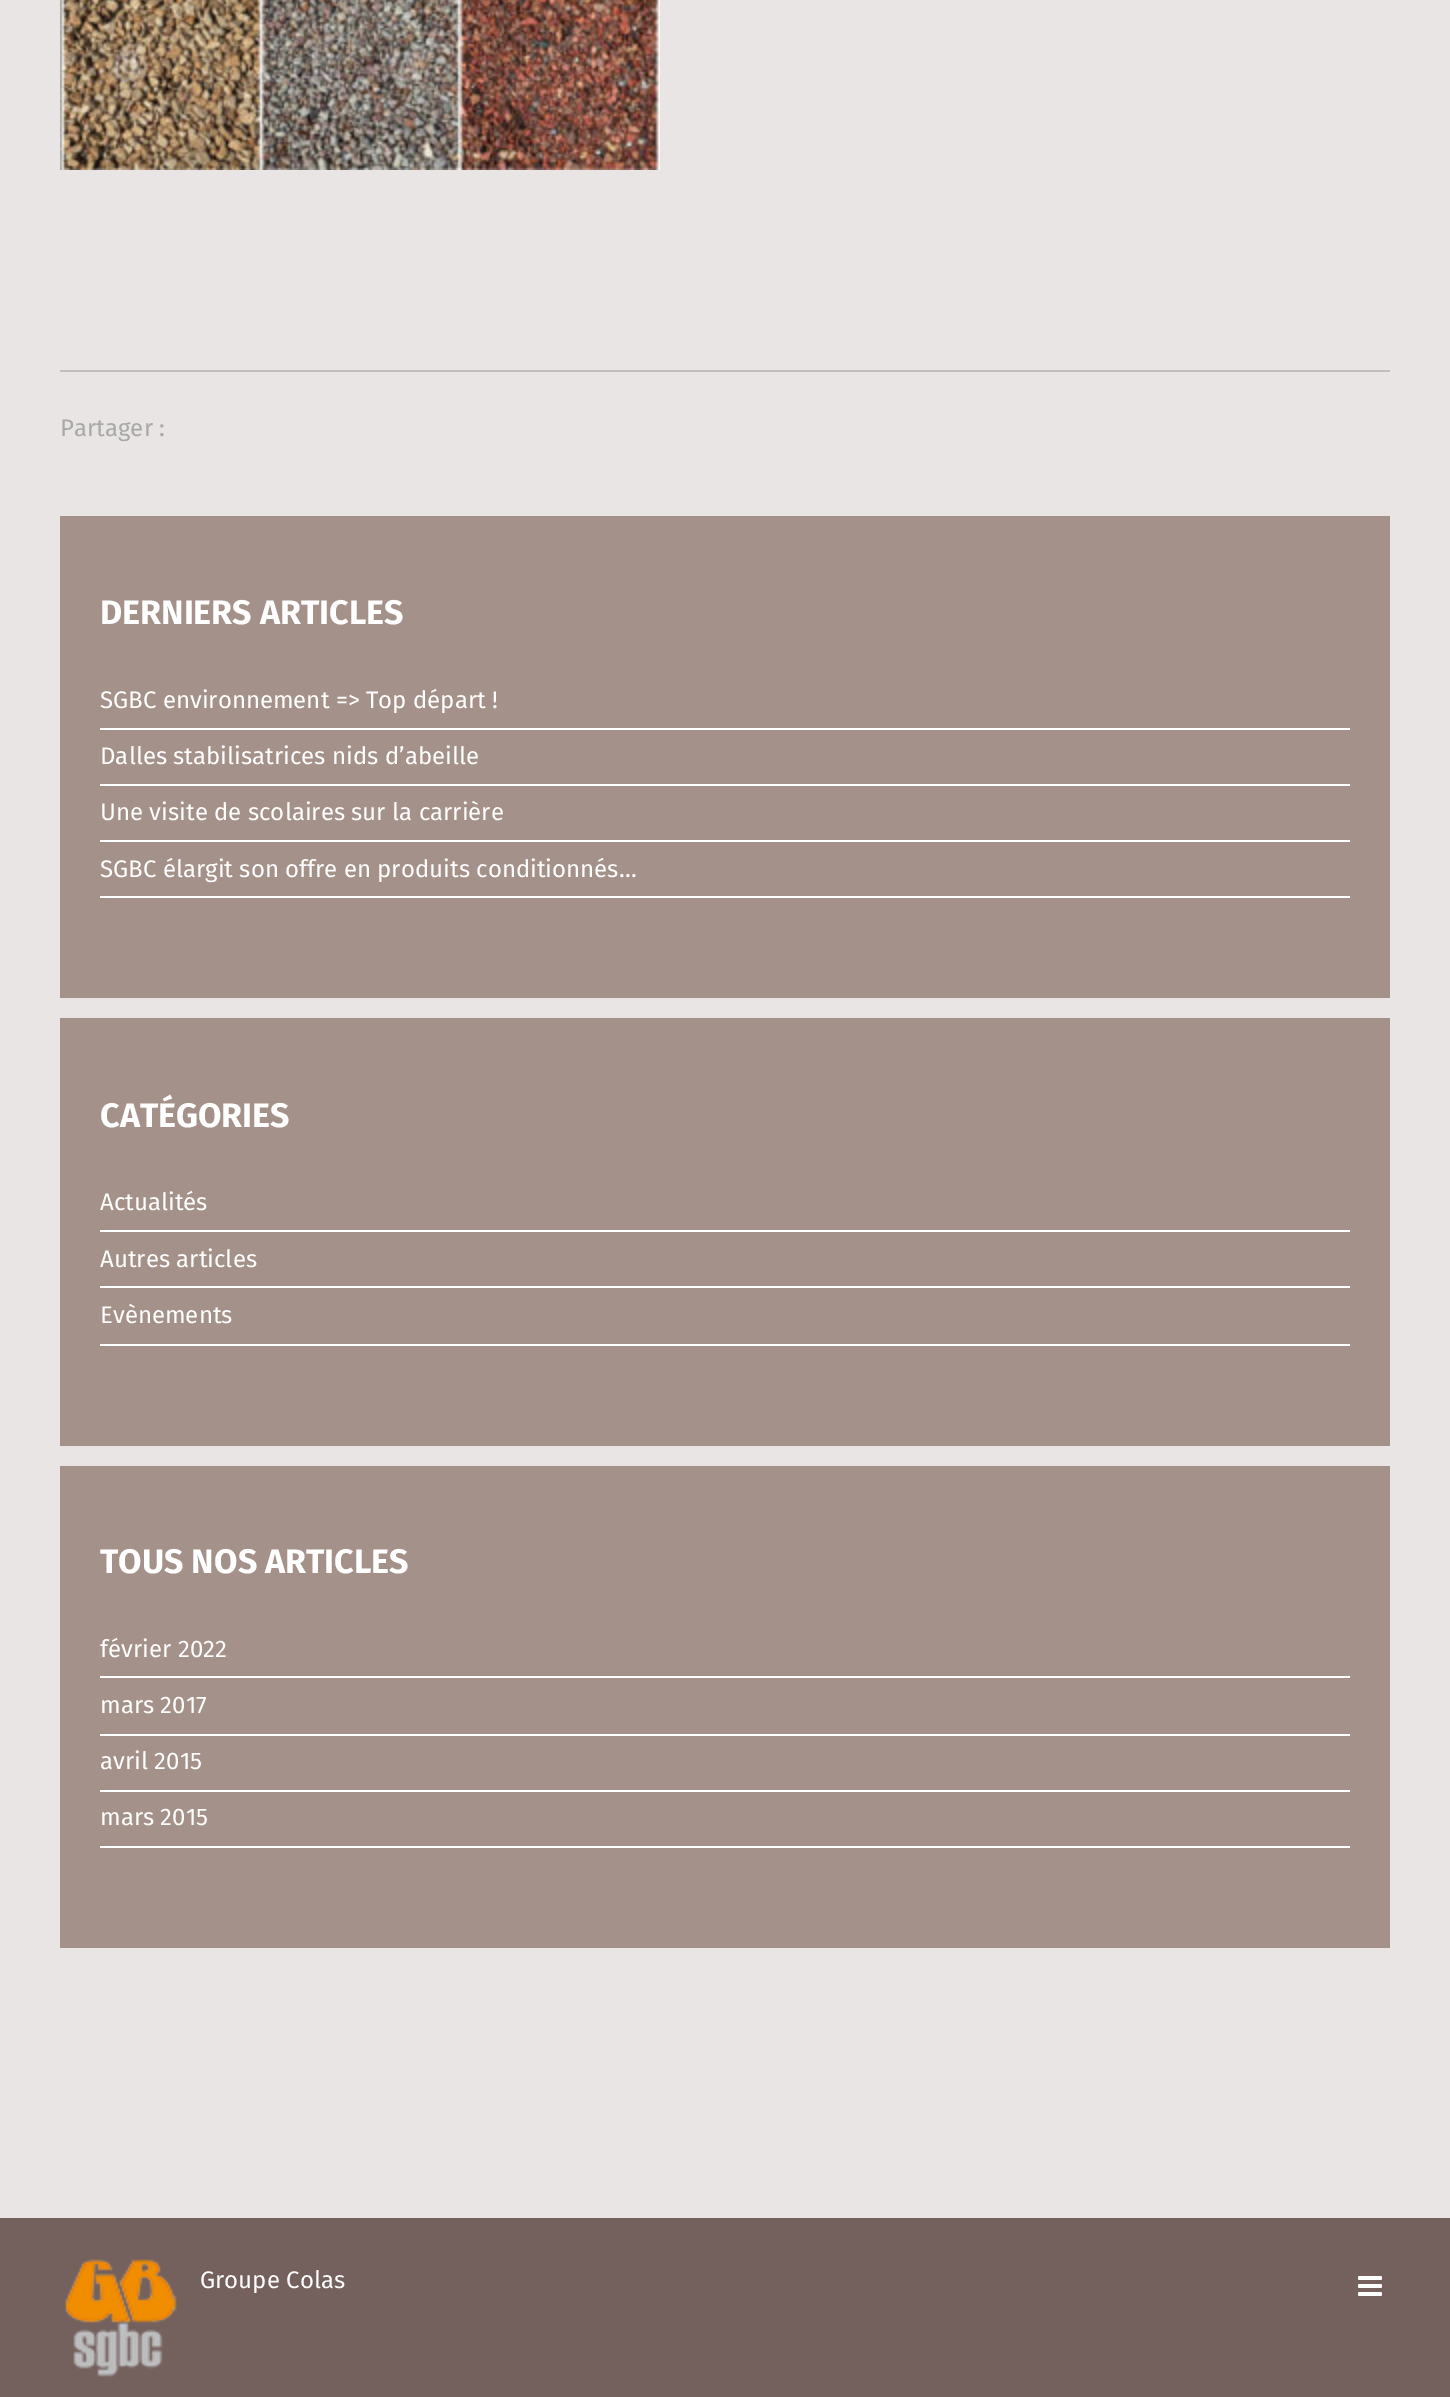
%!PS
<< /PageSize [1450 2397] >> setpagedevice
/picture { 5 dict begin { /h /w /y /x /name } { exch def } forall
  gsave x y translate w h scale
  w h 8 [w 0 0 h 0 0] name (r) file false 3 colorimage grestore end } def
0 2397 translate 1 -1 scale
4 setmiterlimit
0.914 0.898 0.894 setrgbcolor
0 0 1450 2397 rectfill
(img1.rgb) 60 0 600 170 picture
0.753 0.749 0.745 setrgbcolor
60 370 1330 2 rectfill
/FiraSans-Regular [24 0 0 -24 0 0] selectfont
0.659 setgray
60 436 moveto (Partager :) show
0.643 0.569 0.541 setrgbcolor
60 516 1330 482 rectfill
/FiraSans-Bold [34 0 0 -34 0 0] selectfont
1 setgray
100 624 moveto (DERNIERS ARTICLES) show
100 728 1250 2 rectfill
/FiraSans-Regular [24 0 0 -24 0 0] selectfont
100 708 moveto (SGBC environnement => Top départ !) show
100 784 1250 2 rectfill
100 764 moveto (Dalles stabilisatrices nids d’abeille) show
100 840 1250 2 rectfill
100 820 moveto (Une visite de scolaires sur la carrière) show
100 896 1250 2 rectfill
100 877 moveto (SGBC élargit son offre en produits conditionnés…) show
0.643 0.569 0.541 setrgbcolor
60 1018 1330 428 rectfill
/FiraSans-Bold [34 0 0 -34 0 0] selectfont
1 setgray
100 1127 moveto (CATÉGORIES) show
100 1230 1250 2 rectfill
/FiraSans-Regular [24 0 0 -24 0 0] selectfont
100 1210 moveto (Actualités) show
100 1286 1250 2 rectfill
100 1267 moveto (Autres articles) show
100 1344 1250 2 rectfill
100 1323 moveto (Evènements) show
0.643 0.569 0.541 setrgbcolor
60 1466 1330 482 rectfill
/FiraSans-Bold [34 0 0 -34 0 0] selectfont
1 setgray
100 1573 moveto (TOUS NOS ARTICLES) show
100 1676 1250 2 rectfill
/FiraSans-Regular [24 0 0 -24 0 0] selectfont
100 1657 moveto (février 2022) show
100 1734 1250 2 rectfill
100 1713 moveto (mars 2017) show
100 1790 1250 2 rectfill
100 1769 moveto (avril 2015) show
100 1846 1250 2 rectfill
100 1825 moveto (mars 2015) show
0.455 0.38 0.369 setrgbcolor
0 2218 1450 179 rectfill
(img2.rgb) 65 2259 112 118 picture
1 setgray
200 2288 moveto (Groupe Colas) show
(img3.rgb) 1358 2276 24 20 picture
showpage
